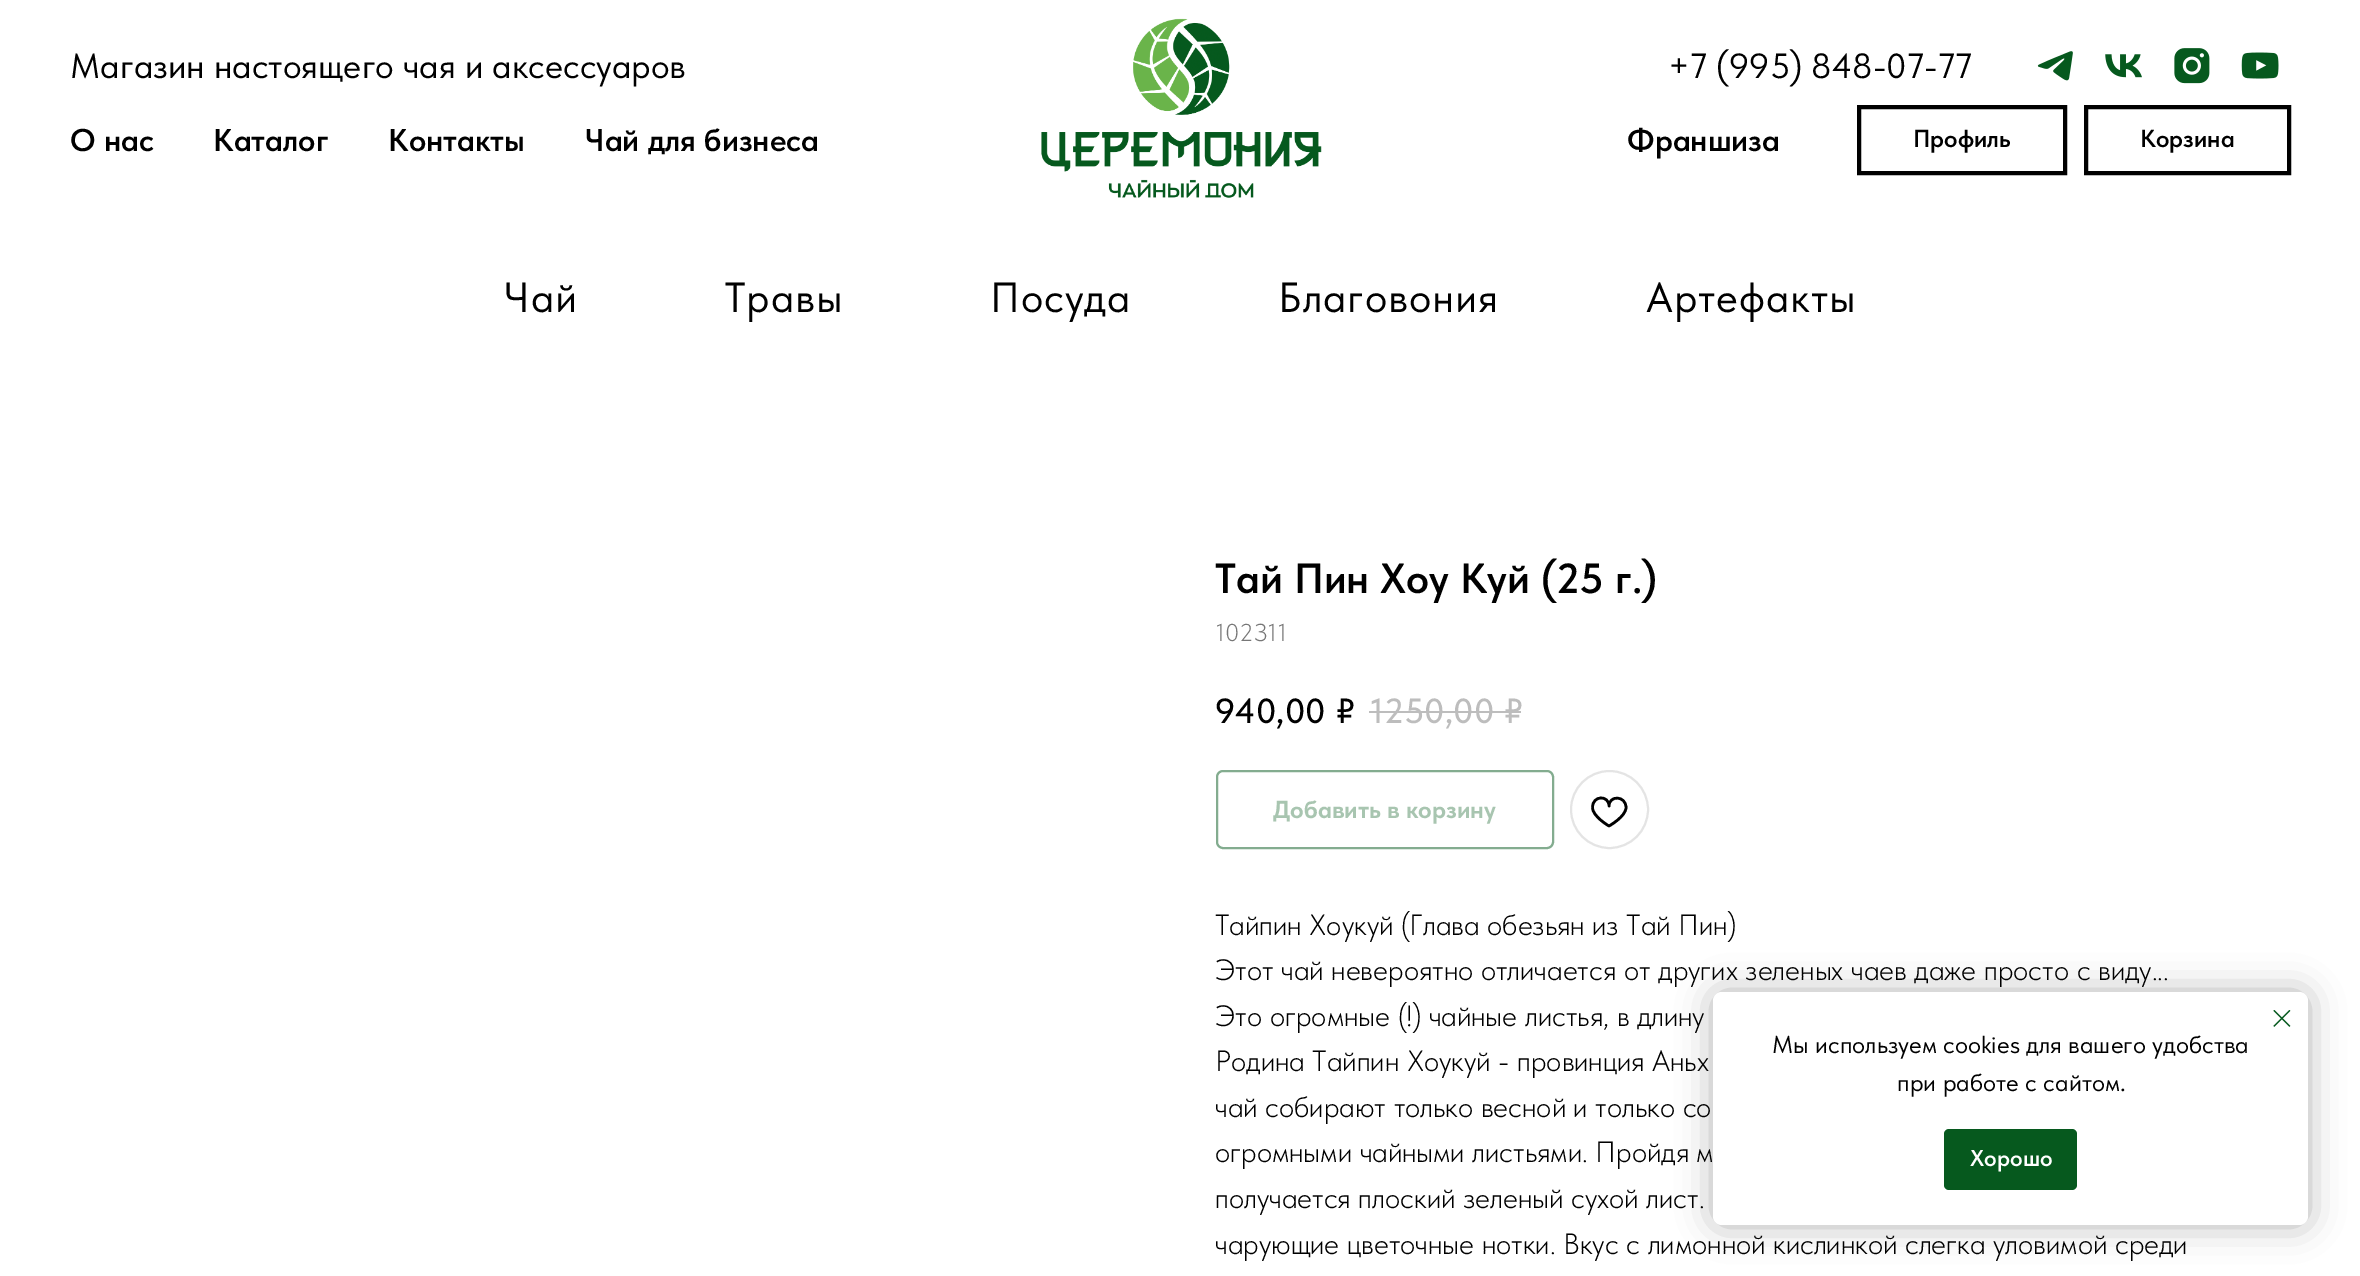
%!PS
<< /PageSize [2360 1276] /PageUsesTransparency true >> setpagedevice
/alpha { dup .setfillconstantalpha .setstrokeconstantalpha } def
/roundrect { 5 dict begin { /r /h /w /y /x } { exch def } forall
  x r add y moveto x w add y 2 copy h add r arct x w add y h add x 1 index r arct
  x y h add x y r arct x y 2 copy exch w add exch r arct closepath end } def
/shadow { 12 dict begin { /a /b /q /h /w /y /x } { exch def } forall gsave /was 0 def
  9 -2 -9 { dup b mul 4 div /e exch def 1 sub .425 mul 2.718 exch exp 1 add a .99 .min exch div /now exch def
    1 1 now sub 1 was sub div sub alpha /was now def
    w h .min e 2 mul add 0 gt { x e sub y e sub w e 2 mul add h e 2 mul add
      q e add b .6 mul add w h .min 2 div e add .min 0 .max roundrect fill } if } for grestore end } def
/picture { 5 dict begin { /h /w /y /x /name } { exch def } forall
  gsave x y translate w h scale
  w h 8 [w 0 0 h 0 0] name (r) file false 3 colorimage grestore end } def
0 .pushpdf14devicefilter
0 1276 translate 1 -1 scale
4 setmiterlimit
1 setgray
0 0 2360 1276 rectfill
/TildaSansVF-Regular [35 0 0 -35 0 0] selectfont
0 setgray
70 78 moveto (Магазин настоящего чая и аксессуаров) show
(img1.rgb) 1041 18 281 180 picture
1668 78 moveto (+7 \(995\) 848-07-77) show
(img2.rgb) 2037 51 36 30 picture
(img3.rgb) 2105 54 37 24 picture
(img4.rgb) 2174 48 36 36 picture
(img5.rgb) 2241 52 38 27 picture
/TildaSansVF-SemiBold [31.5 0 0 -31.5 0 0] selectfont
70 151 moveto (О нас) show
213 151 moveto (Каталог) show
388 151 moveto (Контакты) show
585 151 moveto (Чай для бизнеса) show
1627 151 moveto (Франшиза) show
4 setlinewidth
1859 107 206 66 rectstroke
/TildaSansVF-SemiBold [24.5 0 0 -24.5 0 0] selectfont
1913 147 moveto (Профиль) show
2086 107 203 66 rectstroke
2140 147 moveto (Корзина) show
/TildaSansVF-Regular [42 0 0 -42 0 0] selectfont
504 312 moveto 0.9 0 (Чай) ashow
725 312 moveto 0.9 0 (Травы) ashow
990 312 moveto 0.9 0 (Посуда) ashow
1278 312 moveto 0.9 0 (Благовония) ashow
1646 312 moveto 0.9 0 (Артефакты) ashow
/TildaSansVF-SemiBold [42 0 0 -42 0 0] selectfont
1215 593 moveto (Тай Пин Хоу Куй \(25 г.\)) show
/TildaSansVF-Light [24.5 0 0 -24.5 0 0] selectfont
0.467 setgray
1215 641 moveto (102З11) show
/TildaSansVF-Medium [35 0 0 -35 0 0] selectfont
0 setgray
1215 723 moveto (940,00) show
1336 723 moveto (₽) show
0.741 setgray
1370 723 moveto (1250,00) show
1504 723 moveto (₽) show
1369 711 152 2 rectfill
0.514 0.675 0.561 setrgbcolor
2 setlinewidth
1217 771 336 77 6 roundrect stroke
/TildaSansVF-Bold [24.5 0 0 -24.5 0 0] selectfont
0.659 0.773 0.69 setrgbcolor
1273 818 moveto (Добавить в корзину) show
0.894 setgray
newpath 1609.5 809.5 38.5 0 360 arc closepath stroke
0 setgray
2.6 setlinewidth
1 setlinejoin
newpath 1626 807.5 moveto 1626 816.5 1609 826 1609 826 curveto 1609 826 1592.5 816.5 1592.5 807.5 curveto 1592.5 795 1609 795 1609 806 curveto 1609 795 1626 795.5 1626 807.5 curveto closepath stroke
/TildaSansVF-Light [29.4 0 0 -29.4 0 0] selectfont
1215 935 moveto (Тайпин Хоукуй \(Глава обезьян из Тай Пин\)) show
1215 980 moveto (Этот чай невероятно отличается от других зеленых чаев даже просто с виду...) show
1215 1026 moveto (Это огромные \(!\) чайные листья, в длину) show
1215 1071 moveto (Родина Тайпин Хоукуй - провинция Аньх) show
1215 1117 moveto (чай собирают только весной и только со) show
1215 1162 moveto (огромными чайными листьями. Пройдя м) show
1215 1208 moveto (получается плоский зеленый сухой лист.) show
1215 1254 moveto (чарующие цветочные нотки. Вкус с лимонной кислинкой слегка уловимой среди) show
1713 992 595 233 9 17.5 0.3 shadow
1 setgray
1713 992 595 233 9 roundrect fill
(img6.rgb) 2273 1010 18 17 picture
/TildaSansVF-Regular [24.5 0 0 -24.5 0 0] selectfont
0 setgray
1772 1053 moveto (Мы используем cookies для вашего удобства) show
1897 1091 moveto (при работе с сайтом.) show
0.024 0.349 0.118 setrgbcolor
1944 1129 133 61 5 roundrect fill
/TildaSansVF-SemiBold [23 0 0 -23 0 0] selectfont
1 setgray
1970 1166 moveto (Хорошо) show
.poppdf14devicefilter showpage
